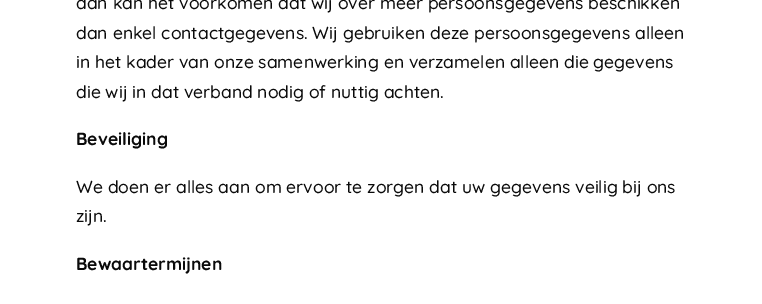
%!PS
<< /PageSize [762 304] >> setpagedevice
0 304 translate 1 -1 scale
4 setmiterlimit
1 setgray
0 0 762 304 rectfill
/Quicksand-Medium [17.5 0 0 -17.5 0 0] selectfont
0.039 setgray
76 9 moveto (dan kan het voorkomen dat wij over meer persoonsgegevens beschikken) show
76 39 moveto (dan enkel contactgegevens. Wij gebruiken deze persoonsgegevens alleen) show
76 68 moveto (in het kader van onze samenwerking en verzamelen alleen die gegevens) show
76 98 moveto (die wij in dat verband nodig of nuttig achten.) show
/Quicksand-Bold [17.5 0 0 -17.5 0 0] selectfont
76 145 moveto (Beveiliging) show
/Quicksand-Medium [17.5 0 0 -17.5 0 0] selectfont
76 193 moveto (We doen er alles aan om ervoor te zorgen dat uw gegevens veilig bij ons) show
76 222 moveto (zijn.) show
/Quicksand-Bold [17.5 0 0 -17.5 0 0] selectfont
76 270 moveto (Bewaartermijnen) show
showpage
